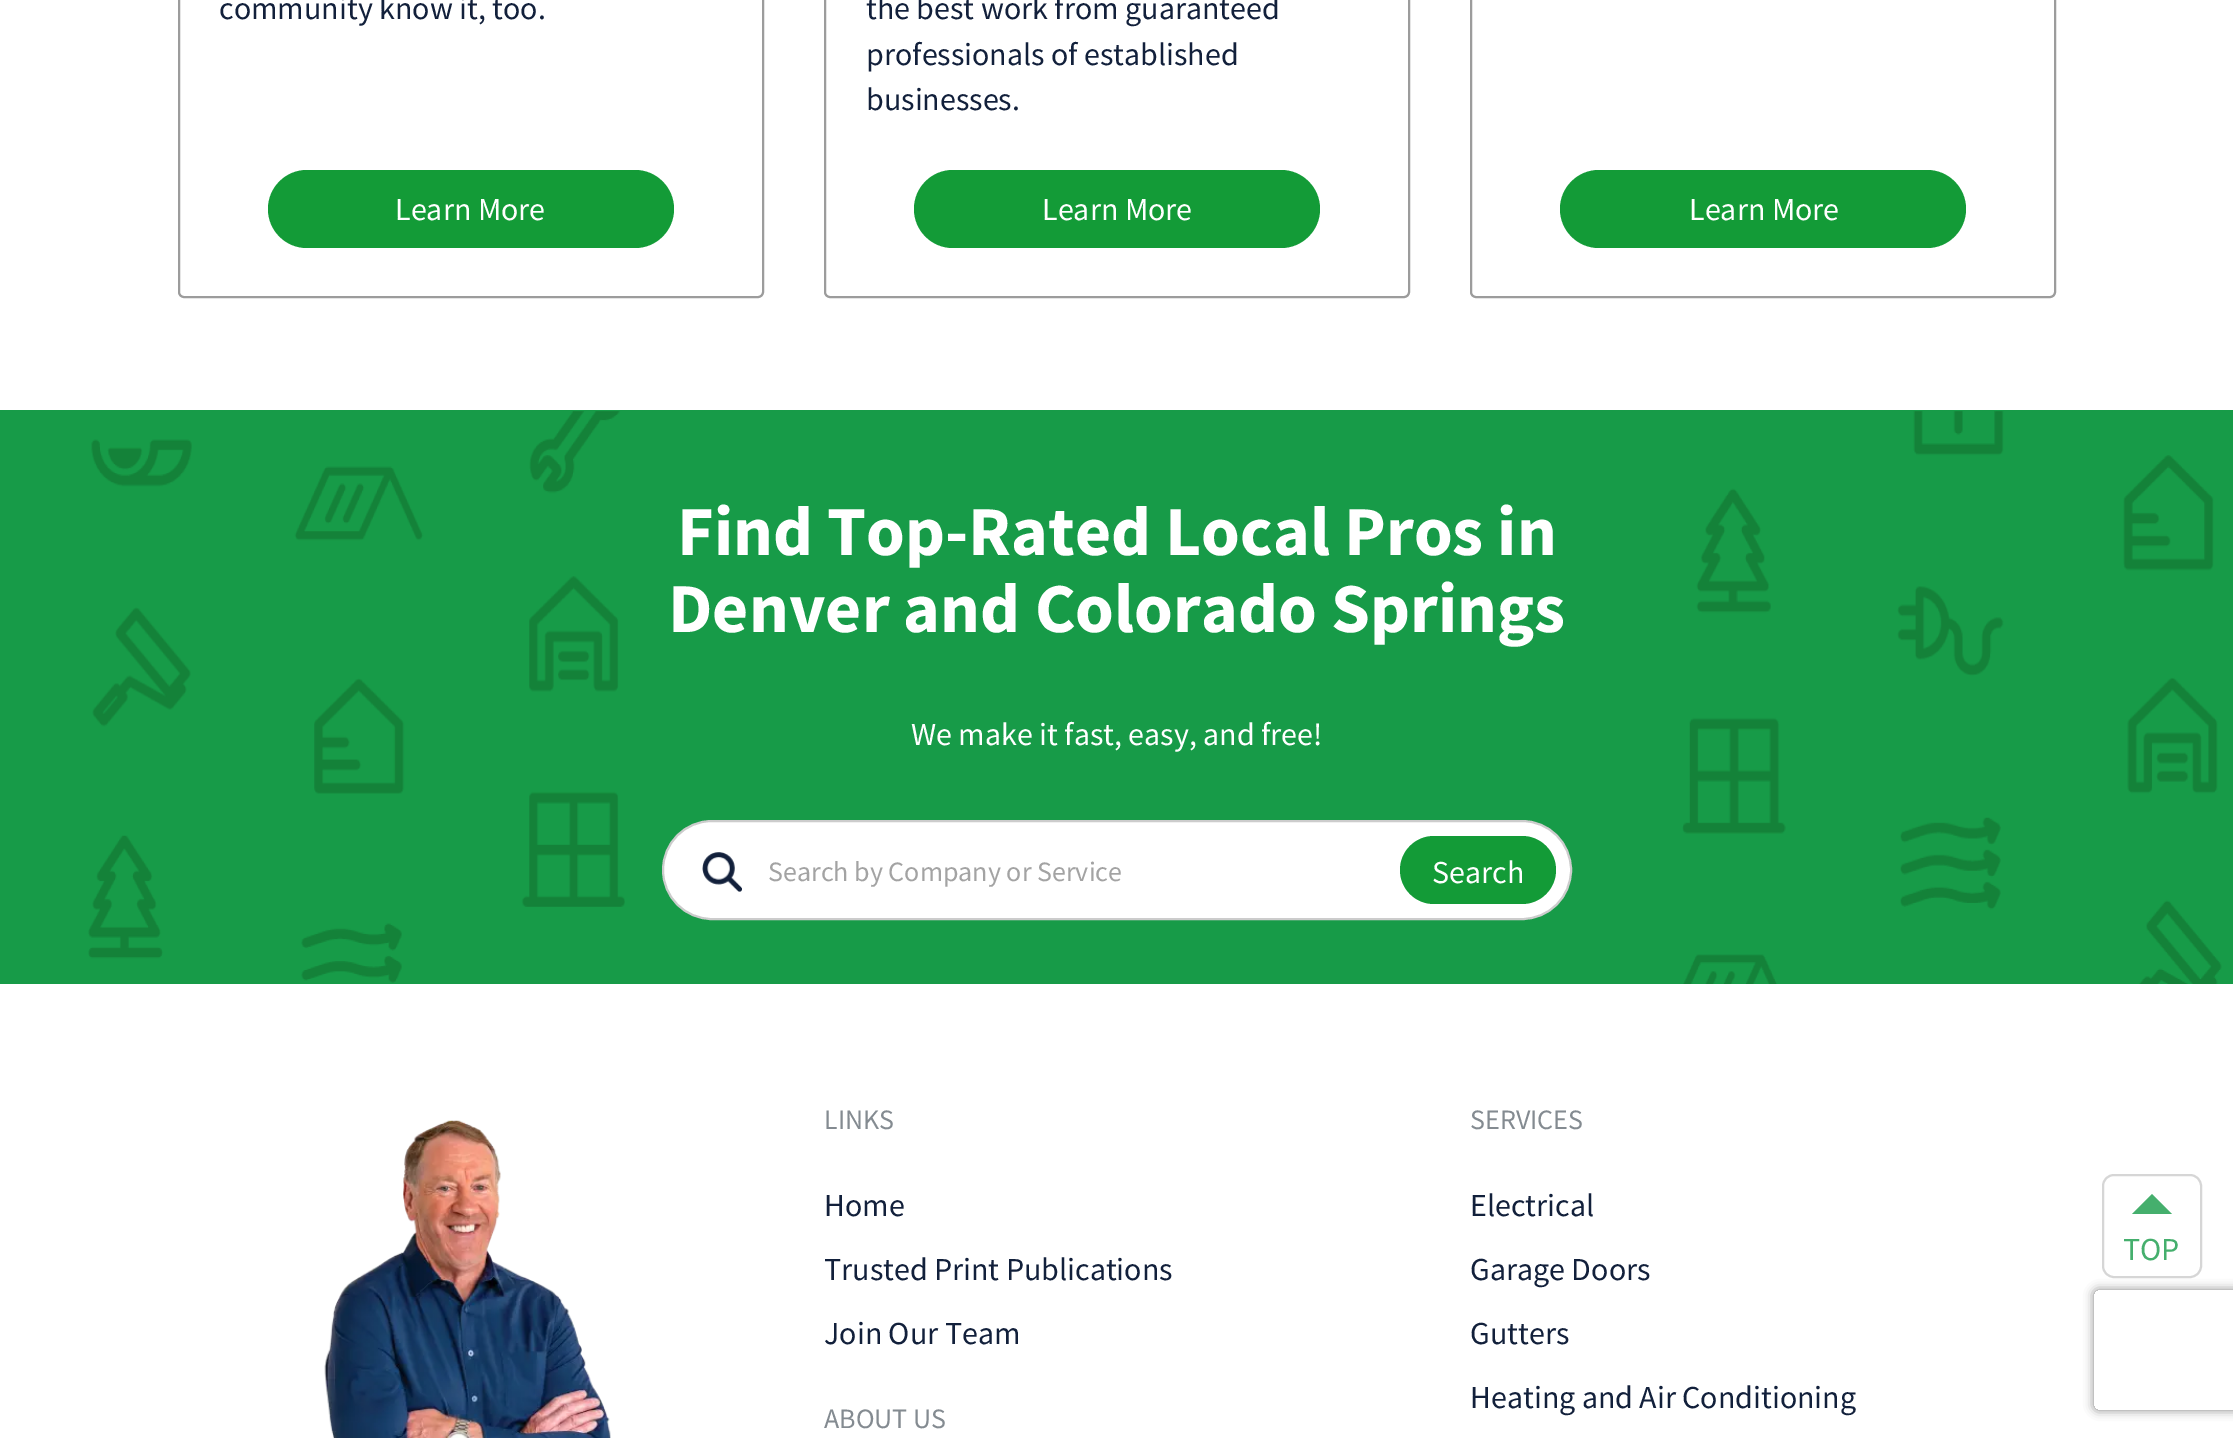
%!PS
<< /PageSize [2233 1438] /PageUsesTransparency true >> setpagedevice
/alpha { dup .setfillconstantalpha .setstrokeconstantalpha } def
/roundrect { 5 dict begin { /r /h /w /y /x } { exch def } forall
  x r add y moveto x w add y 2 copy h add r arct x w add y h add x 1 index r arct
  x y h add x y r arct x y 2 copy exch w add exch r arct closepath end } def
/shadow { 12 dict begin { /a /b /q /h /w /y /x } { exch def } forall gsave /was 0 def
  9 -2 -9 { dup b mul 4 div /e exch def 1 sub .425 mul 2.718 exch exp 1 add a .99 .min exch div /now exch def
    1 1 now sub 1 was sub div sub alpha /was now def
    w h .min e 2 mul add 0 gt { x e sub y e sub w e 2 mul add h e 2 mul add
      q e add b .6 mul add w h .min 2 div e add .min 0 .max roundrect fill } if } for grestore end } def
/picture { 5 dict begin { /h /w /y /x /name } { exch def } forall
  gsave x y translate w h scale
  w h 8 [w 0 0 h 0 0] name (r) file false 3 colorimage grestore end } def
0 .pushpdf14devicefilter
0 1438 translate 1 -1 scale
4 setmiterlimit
1 setgray
0 0 2233 1438 rectfill
0.612 setgray
2 setlinewidth
179 -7 584 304 5 roundrect stroke
/SourceSansPro-Regular [32 0 0 -32 0 0] selectfont
0.071 0.125 0.231 setrgbcolor
219 19 moveto (community know it, too.) show
0.075 0.608 0.216 setrgbcolor
268 170 406 78 39 roundrect fill
1 setgray
395 220 moveto (Learn More) show
0.612 setgray
825 -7 584 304 5 roundrect stroke
0.071 0.125 0.231 setrgbcolor
866 19 moveto (the best work from guaranteed) show
866 65 moveto (professionals of established) show
866 110 moveto (businesses.) show
0.075 0.608 0.216 setrgbcolor
914 170 406 78 39 roundrect fill
1 setgray
1042 220 moveto (Learn More) show
0.612 setgray
1471 -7 584 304 5 roundrect stroke
0.075 0.608 0.216 setrgbcolor
1560 170 406 78 39 roundrect fill
1 setgray
1689 220 moveto (Learn More) show
0.09 0.608 0.282 setrgbcolor
0 410 2233 574 rectfill
(img1.rgb) 88 411 537 572 picture
/SourceSansPro-Bold [70 0 0 -70 0 0] selectfont
1 setgray
677 555 moveto (Find Top-Rated Local Pros in) show
668 632 moveto (Denver and Colorado Springs) show
/SourceSansPro-Regular [32 0 0 -32 0 0] selectfont
911 745 moveto (We make it fast, easy, and free!) show
663 821 908 98 49 roundrect gsave fill grestore
0.8 setgray
stroke
(img2.rgb) 702 852 40 40 picture
/SourceSansPro-Regular [28 0 0 -28 0 0] selectfont
0.639 setgray
768 881 moveto (Search by Company or Service) show
0.075 0.608 0.216 setrgbcolor
1400 836 156 68 34 roundrect fill
/SourceSansPro-Regular [32 0 0 -32 0 0] selectfont
1 setgray
1432 883 moveto (Search) show
(img3.rgb) 1682 411 540 573 picture
(img4.rgb) 324 1120 287 318 picture
/SourceSansPro-Regular [28 0 0 -28 0 0] selectfont
0.518 0.545 0.569 setrgbcolor
824 1129 moveto (LINKS) show
/SourceSansPro-Regular [32 0 0 -32 0 0] selectfont
0.071 0.125 0.231 setrgbcolor
824 1216 moveto (Home) show
824 1280 moveto (Trusted Print Publications) show
824 1344 moveto (Join Our Team) show
/SourceSansPro-Regular [28 0 0 -28 0 0] selectfont
0.518 0.545 0.569 setrgbcolor
824 1428 moveto (ABOUT US) show
1470 1129 moveto (SERVICES) show
/SourceSansPro-Regular [32 0 0 -32 0 0] selectfont
0.071 0.125 0.231 setrgbcolor
1470 1216 moveto (Electrical) show
1470 1280 moveto (Garage Doors) show
1470 1344 moveto (Gutters) show
1470 1408 moveto (Heating and Air Conditioning) show
0.839 setgray
2103 1175 98 102 11 roundrect stroke
0.271 0.686 0.427 setrgbcolor
newpath 2172 1214 moveto 2132 1214 lineto 2152 1194 lineto closepath fill
2123 1260 moveto (TOP) show
gsave
newpath 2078 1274 moveto 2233 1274 lineto 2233 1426 lineto 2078 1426 lineto closepath 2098 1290 moveto 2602 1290 lineto 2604 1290 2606 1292 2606 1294 curveto 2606 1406 lineto 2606 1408 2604 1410 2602 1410 curveto 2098 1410 lineto 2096 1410 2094 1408 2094 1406 curveto 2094 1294 lineto 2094 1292 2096 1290 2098 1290 curveto closepath eoclip newpath
0.502 setgray
2094 1290 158 120 4 5 1 shadow
grestore
.poppdf14devicefilter showpage
